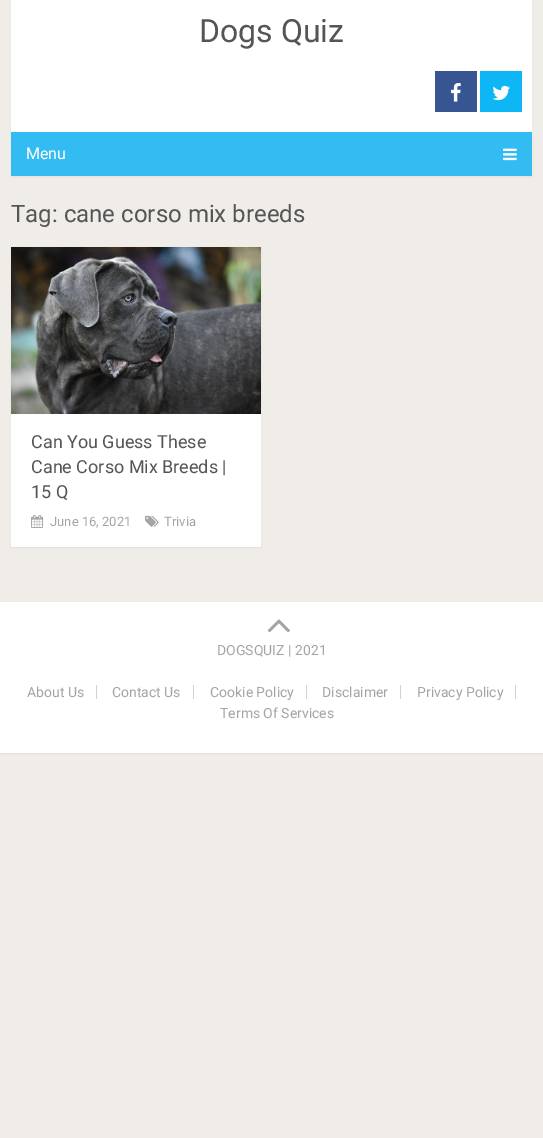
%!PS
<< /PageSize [543 1138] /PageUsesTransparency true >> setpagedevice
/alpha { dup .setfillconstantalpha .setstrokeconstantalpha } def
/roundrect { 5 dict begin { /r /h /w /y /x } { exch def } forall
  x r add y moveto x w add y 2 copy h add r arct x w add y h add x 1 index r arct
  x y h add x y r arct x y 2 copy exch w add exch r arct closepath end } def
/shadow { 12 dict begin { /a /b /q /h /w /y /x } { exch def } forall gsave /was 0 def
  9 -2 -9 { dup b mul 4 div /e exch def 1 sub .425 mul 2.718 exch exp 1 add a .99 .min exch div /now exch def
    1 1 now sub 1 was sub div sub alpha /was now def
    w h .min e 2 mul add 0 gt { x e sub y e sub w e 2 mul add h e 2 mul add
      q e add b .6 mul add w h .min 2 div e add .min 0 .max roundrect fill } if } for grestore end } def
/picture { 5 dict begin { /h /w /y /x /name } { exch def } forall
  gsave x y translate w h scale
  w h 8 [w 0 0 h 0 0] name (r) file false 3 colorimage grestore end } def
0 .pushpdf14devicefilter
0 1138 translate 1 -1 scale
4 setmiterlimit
0.941 0.929 0.914 setrgbcolor
0 0 543 1138 rectfill
0 setgray
11 1 521 176 0 1 0.05 shadow
1 setgray
11 0 521 132 rectfill
/Roboto-Regular [32 0 0 -32 0 0] selectfont
0.333 setgray
199 42 moveto (Dogs Quiz) show
0.216 0.333 0.576 setrgbcolor
435 71 42 41 rectfill
(img1.rgb) 451 83 10 19 picture
0.055 0.714 0.965 setrgbcolor
480 71 42 41 rectfill
(img2.rgb) 492 85 18 16 picture
0.2 0.737 0.949 setrgbcolor
11 132 521 44 rectfill
/Roboto-Regular [16 0 0 -16 0 0] selectfont
1 setgray
26 159 moveto (Menu) show
(img3.rgb) 503 148 14 13 picture
/Roboto-Regular [24 0 0 -24 0 0] selectfont
0.333 setgray
11 222 moveto (Tag: cane corso mix breeds) show
0 setgray
11 248 250 300 0 1 0.05 shadow
1 setgray
11 414 250 133 rectfill
(img4.rgb) 11 247 250 167 picture
/Roboto-Regular [18 0 0 -18 0 0] selectfont
0.333 setgray
31 448 moveto (Can You Guess These) show
31 473 moveto (Cane Corso Mix Breeds |) show
31 498 moveto (15 Q) show
(img5.rgb) 31 515 13 13 picture
/Roboto-Regular [13 0 0 -13 0 0] selectfont
0.643 setgray
50 526 moveto (June 16, 2021) show
(img6.rgb) 145 515 14 12 picture
164 526 moveto (Trivia) show
0 setgray
0 603 543 151 0 1 0.05 shadow
1 setgray
0 602 543 151 rectfill
(img7.rgb) 267 619 23 14 picture
/Roboto-Regular [14 0 0 -14 0 0] selectfont
0.643 setgray
217 655 moveto (DOGSQUIZ | 2021) show
0.824 setgray
96 685 1 14 rectfill
0.643 setgray
27 697 moveto (About Us) show
0.824 setgray
193 685 1 14 rectfill
0.643 setgray
112 697 moveto (Contact Us) show
0.824 setgray
306 685 1 14 rectfill
0.643 setgray
210 697 moveto (Cookie Policy) show
0.824 setgray
400 685 1 14 rectfill
0.643 setgray
322 697 moveto (Disclaimer) show
0.824 setgray
515 685 1 14 rectfill
0.643 setgray
417 697 moveto (Privacy Policy) show
220 718 moveto (Terms Of Services) show
.poppdf14devicefilter showpage
